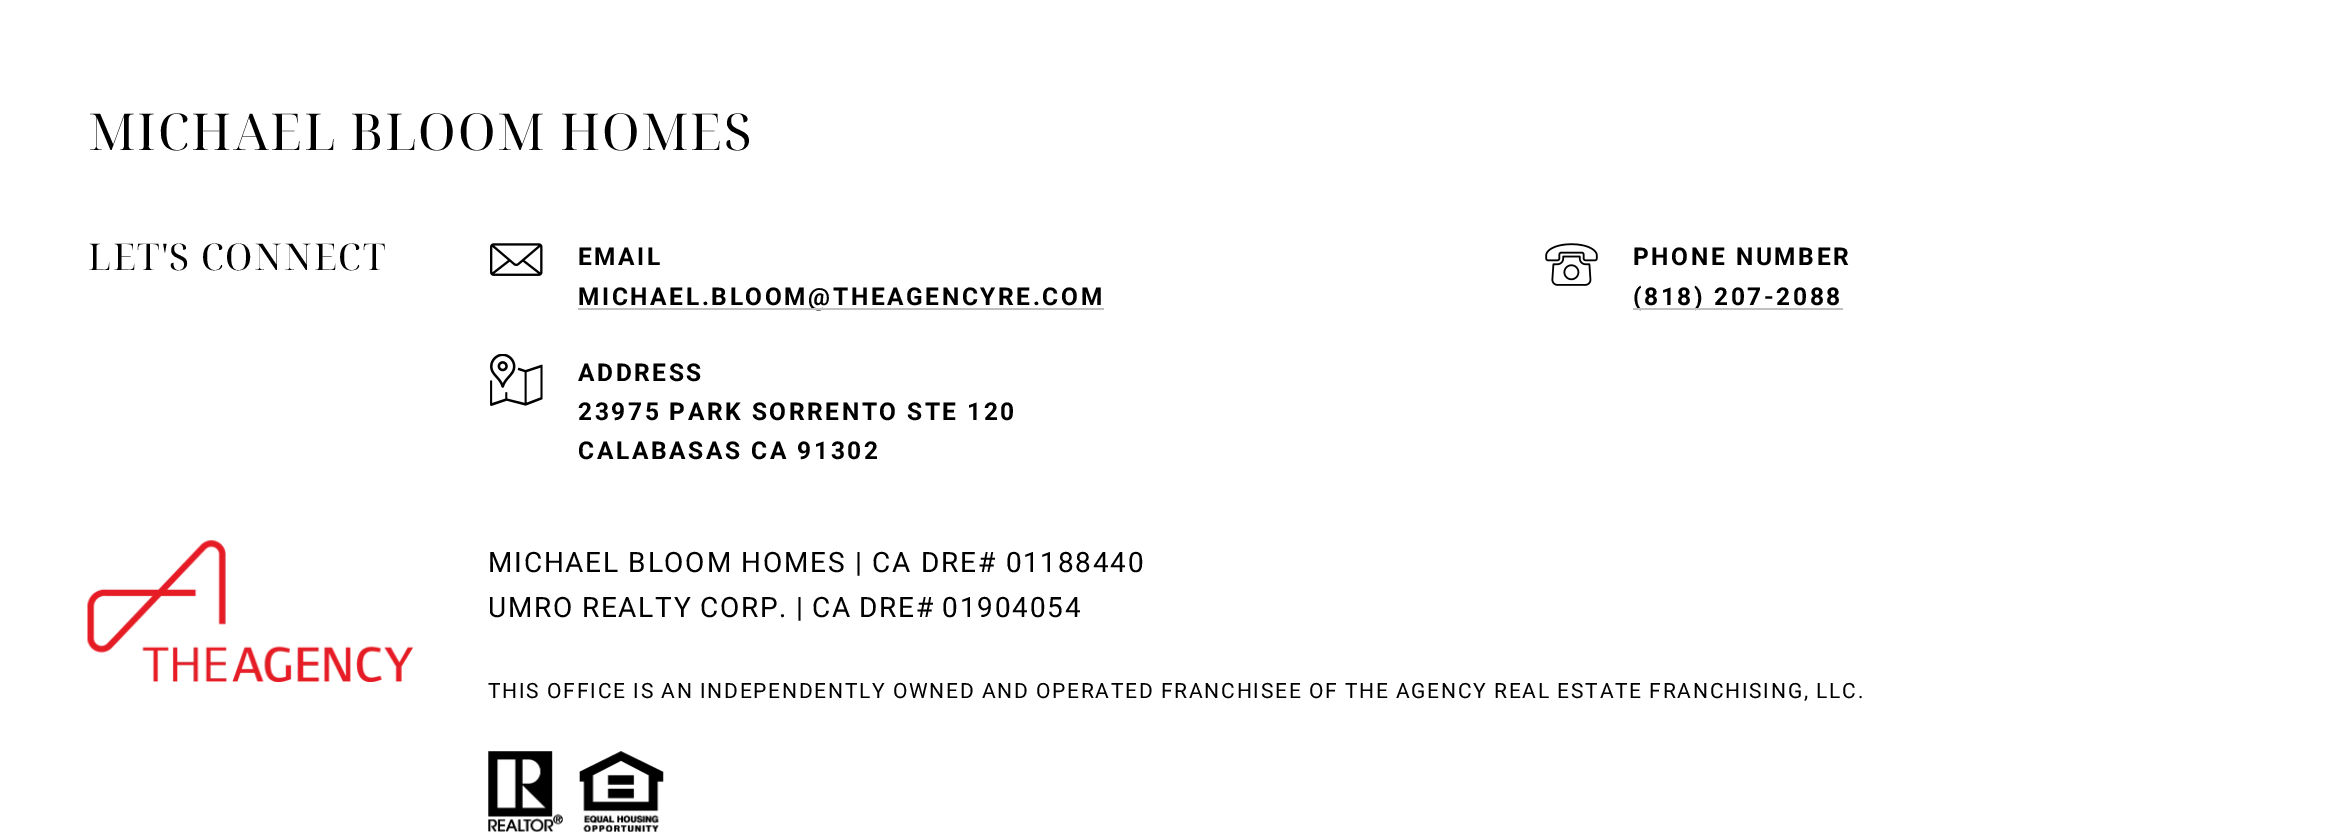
%!PS
<< /PageSize [2332 832] >> setpagedevice
/picture { 5 dict begin { /h /w /y /x /name } { exch def } forall
  gsave x y translate w h scale
  w h 8 [w 0 0 h 0 0] name (r) file false 3 colorimage grestore end } def
0 832 translate 1 -1 scale
4 setmiterlimit
1 setgray
0 0 2332 832 rectfill
/NotoSerifDisplay-Regular [50.75 0 0 -50.75 0 0] selectfont
0 setgray
88 150 moveto 1.75 0 (MICHAEL BLOOM HOMES) ashow
/NotoSerifDisplay-Regular [36.75 0 0 -36.75 0 0] selectfont
88 270 moveto 1.75 0 (LET'S CONNECT) ashow
(img1.rgb) 490 243 53 33 picture
/Roboto-Bold [24.5 0 0 -24.5 0 0] selectfont
578 265 moveto 2.6 0 (EMAIL) ashow
578 305 moveto 2.6 0 (MICHAEL.BLOOM@THEAGENCYRE.COM) ashow
0.753 setgray
578 308 526 2 rectfill
(img2.rgb) 1545 243 53 43 picture
0 setgray
1633 265 moveto 2.6 0 (PHONE NUMBER) ashow
1633 305 moveto 2.6 0 (\(818\) 207-2088) ashow
0.753 setgray
1633 308 210 2 rectfill
(img3.rgb) 490 354 53 52 picture
0 setgray
578 381 moveto 2.6 0 (ADDRESS) ashow
578 420 moveto -0.5 0 32 2.6 0 (23975 PARK SORRENTO STE 120) awidthshow
578 459 moveto 2.6 0 (CALABASAS CA 91302) ashow
(img4.rgb) 87 540 326 142 picture
/Roboto-Regular [28 0 0 -28 0 0] selectfont
488 572 moveto 1.75 0 (MICHAEL BLOOM HOMES | CA DRE# 01188440) ashow
488 617 moveto -1.25 0 32 1.75 0 (UMRO REALTY CORP. | CA DRE# 01904054) awidthshow
/Roboto-Regular [21 0 0 -21 0 0] selectfont
488 698 moveto -0.5 0 32 1.75 0 (THIS OFFICE IS AN INDEPENDENTLY OWNED AND OPERATED FRANCHISEE OF THE AGENCY REAL ESTATE FRANCHISING, LLC.) awidthshow
(img5.rgb) 488 751 176 81 picture
showpage
